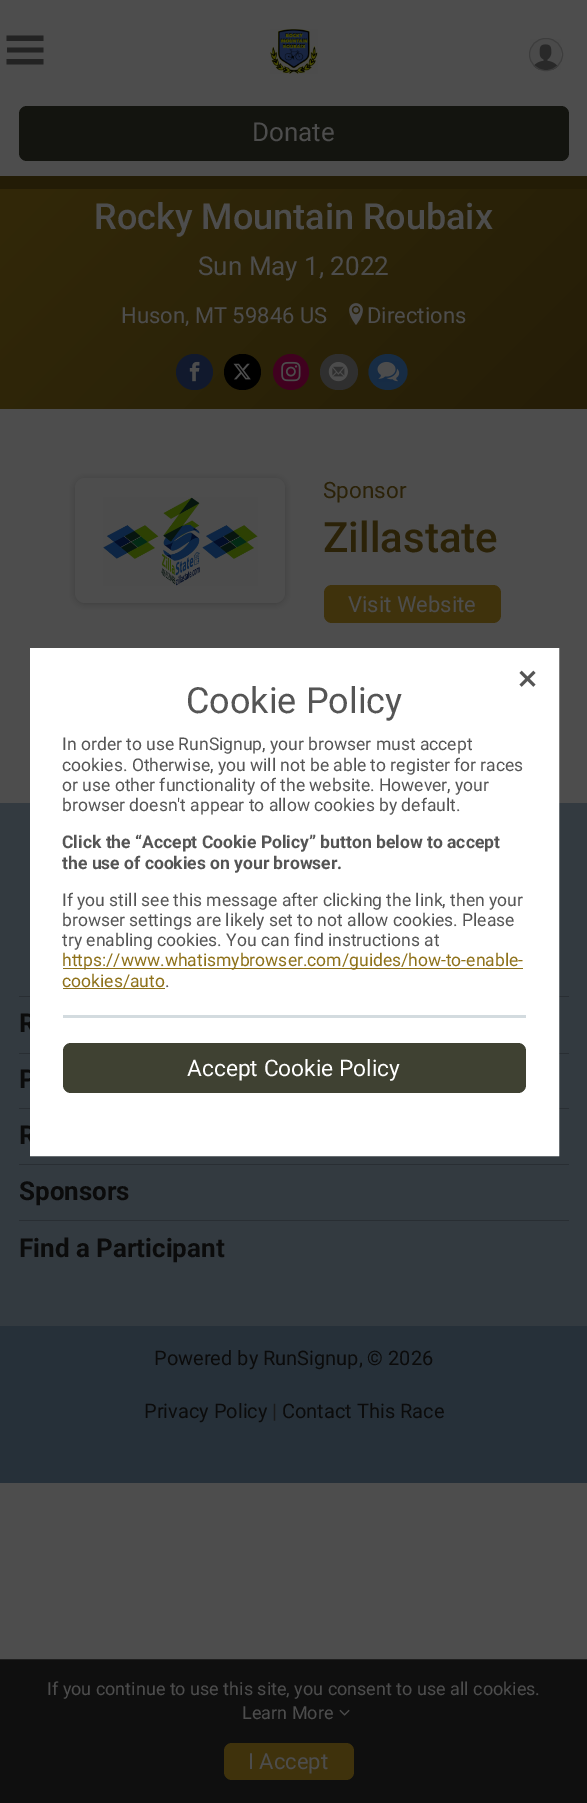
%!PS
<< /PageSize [587 1803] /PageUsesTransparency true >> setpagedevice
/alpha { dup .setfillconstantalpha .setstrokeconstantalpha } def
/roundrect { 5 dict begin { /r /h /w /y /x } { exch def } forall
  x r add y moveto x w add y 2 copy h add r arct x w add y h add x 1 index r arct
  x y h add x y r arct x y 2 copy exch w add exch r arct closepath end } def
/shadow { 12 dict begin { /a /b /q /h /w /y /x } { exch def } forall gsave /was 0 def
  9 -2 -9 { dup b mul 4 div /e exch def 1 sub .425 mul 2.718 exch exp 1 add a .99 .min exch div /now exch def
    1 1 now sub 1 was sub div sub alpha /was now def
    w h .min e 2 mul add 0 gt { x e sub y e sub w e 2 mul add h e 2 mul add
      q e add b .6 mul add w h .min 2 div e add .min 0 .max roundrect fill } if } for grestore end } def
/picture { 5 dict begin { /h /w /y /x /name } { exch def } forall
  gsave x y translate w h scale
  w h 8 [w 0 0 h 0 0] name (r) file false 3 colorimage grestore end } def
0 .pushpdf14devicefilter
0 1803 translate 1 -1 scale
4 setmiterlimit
0.302 setgray
0 0 587 1803 rectfill
0.137 setgray
newpath 43.5 35.5 moveto 43.5 41 lineto 6.5 41 lineto 6.5 35.5 lineto closepath 43.5 47.5 moveto 43.5 52.5 lineto 7 52.5 lineto 7 47.5 lineto closepath 43.5 59 moveto 43.5 64.5 lineto 6.5 64.5 lineto 6.5 59 lineto closepath fill
(img1.rgb) 270 29 48 45 picture
(img2.rgb) 530 39 31 31 picture
0.239 setgray
529.5 38.5 33 32 16 roundrect stroke
0.075 0.078 0.059 setrgbcolor
19 106 550 55 8 roundrect fill
/Roboto-Regular [26 0 0 -26 0 0] selectfont
0.302 setgray
252 141 moveto (Donate) show
gsave newpath 0 189 moveto 587 189 lineto 587 409 lineto 0 409 lineto closepath clip newpath
<< /ShadingType 2 /ColorSpace /DeviceRGB /Coords [496 501 92 97] /Extend [true true] /Function << /FunctionType 2 /Domain [0 1] /C0 [0.145 0.114 0.027] /C1 [0.196 0.157 0.035] /N 1 >> >> shfill grestore
0.137 0.11 0.024 setrgbcolor
0 176 587 13 rectfill
/Roboto-Medium [36 0 0 -36 0 0] selectfont
0.302 setgray
94 229 moveto (Rocky Mountain Roubaix) show
/Roboto-Regular [26 0 0 -26 0 0] selectfont
198 275 moveto (Sun May 1, 2022) show
/Roboto-Regular [22 0 0 -22 0 0] selectfont
121 323 moveto (Huson, MT 59846 US) show
(img3.rgb) 349 303 14 22 picture
367 323 moveto (Directions) show
0.067 0.098 0.176 setrgbcolor
176 354 37 36 18 roundrect fill
(img4.rgb) 189 361 11 21 picture
0 setgray
224 354 37 36 18 roundrect fill
(img5.rgb) 233 363 18 17 picture
0.251 0.004 0.122 setrgbcolor
newpath 291 372 18 0 360 arc closepath fill
(img6.rgb) 281 361 20 21 picture
0.184 setgray
320 354 38 36 18 roundrect fill
(img7.rgb) 328 362 20 20 picture
0.09 0.173 0.267 setrgbcolor
newpath 388 354 moveto 399 354 407.5 362 407.5 372 curveto 407.5 382 399 390 388 390 curveto 377 390 368.5 382 368.5 372 curveto 368.5 362 377 354 388 354 curveto closepath fill
(img8.rgb) 377 361 23 21 picture
0 setgray
75 479 210 125 10 3 0.2 shadow
0.302 setgray
75 478 210 125 10 roundrect fill
(img9.rgb) 103 497 155 89 picture
/Roboto-Regular [22.5 0 0 -22.5 0 0] selectfont
0.169 0.133 0.031 setrgbcolor
323 498 moveto (Sponsor) show
/Roboto-Medium [42 0 0 -42 0 0] selectfont
323 552 moveto (Zillastate) show
0.247 0.196 0.047 setrgbcolor
324 585 177 38 8 roundrect fill
/Roboto-Regular [22 0 0 -22 0 0] selectfont
0.302 setgray
348 612 moveto (Visit Website) show
0.149 0.188 0.224 setrgbcolor
0 1326 587 157 rectfill
0.2 0.227 0.251 setrgbcolor
0 803 587 523 rectfill
0.161 0.18 0.2 setrgbcolor
19 996 550 1 rectfill
/Roboto-Bold [26 0 0 -26 0 0] selectfont
0.043 setgray
19 1032 moveto (R) show
0.161 0.18 0.2 setrgbcolor
19 1053 550 1 rectfill
0.043 setgray
19 1088 moveto (P) show
0.161 0.18 0.2 setrgbcolor
19 1108 550 1 rectfill
0.043 setgray
19 1144 moveto (R) show
0.161 0.18 0.2 setrgbcolor
19 1164 550 1 rectfill
0.043 setgray
19 1200 moveto (Sponsors) show
0.161 0.18 0.2 setrgbcolor
19 1220 550 1 rectfill
0.043 setgray
19 1257 moveto (Find a Participant) show
/Roboto-Regular [20 0 0 -20 0 0] selectfont
154 1365 moveto (Powered by RunSignup, © 2026) show
144 1418 moveto (Privacy Policy) show
0.102 setgray
272 1418 moveto (|) show
0.043 setgray
282 1418 moveto (Contact This Race) show
1 setgray
30.5 648.5 528 507 rectstroke
31 649 527 506 rectfill
(img10.rgb) 519 670 17 17 picture
/Roboto-Regular [36 0 0 -36 0 0] selectfont
0.333 setgray
186 713 moveto (Cookie Policy) show
/Roboto-Regular [17.5 0 0 -17.5 0 0] selectfont
62 750 moveto (In order to use RunSignup, your browser must accept) show
62 771 moveto (cookies. Otherwise, you will not be able to register for races) show
62 791 moveto (or use other functionality of the website. However, your) show
62 811 moveto (browser doesn't appear to allow cookies by default.) show
/Roboto-Bold [17.5 0 0 -17.5 0 0] selectfont
62 848 moveto (Click the “Accept Cookie Policy” button below to accept) show
62 869 moveto (the use of cookies on your browser.) show
/Roboto-Regular [17.5 0 0 -17.5 0 0] selectfont
62 906 moveto (If you still see this message after clicking the link, then your) show
62 926 moveto (browser settings are likely set to not allow cookies. Please) show
62 946 moveto (try enabling cookies. You can find instructions at) show
0.557 0.443 0.102 setrgbcolor
63 968 460 1 rectfill
62 966 moveto (https://www.whatismybrowser.com/guides/how-to-enable-) show
63 988 102 1 rectfill
62 987 moveto (cookies/auto) show
0.333 setgray
165 987 moveto (.) show
0.827 0.859 0.875 setrgbcolor
63 1015 463 3 rectfill
0.247 0.255 0.196 setrgbcolor
63 1043 463 50 8 roundrect fill
/Roboto-Regular [22.75 0 0 -22.75 0 0] selectfont
1 setgray
187 1076 moveto (Accept Cookie Policy) show
0.059 setgray
0 1660 587 143 rectfill
0.122 setgray
0 1659 587 1 rectfill
/Roboto-Regular [18 0 0 -18 0 0] selectfont
0.302 setgray
47 1695 moveto (If you continue to use this site, you consent to use all cookies.) show
242 1719 moveto (Learn More) show
(img11.rgb) 339 1709 11 7 picture
0.247 0.196 0.047 setrgbcolor
224 1743 130 37 8 roundrect fill
/Roboto-Regular [22 0 0 -22 0 0] selectfont
0.302 setgray
248 1769 moveto (I Accept) show
.poppdf14devicefilter showpage
